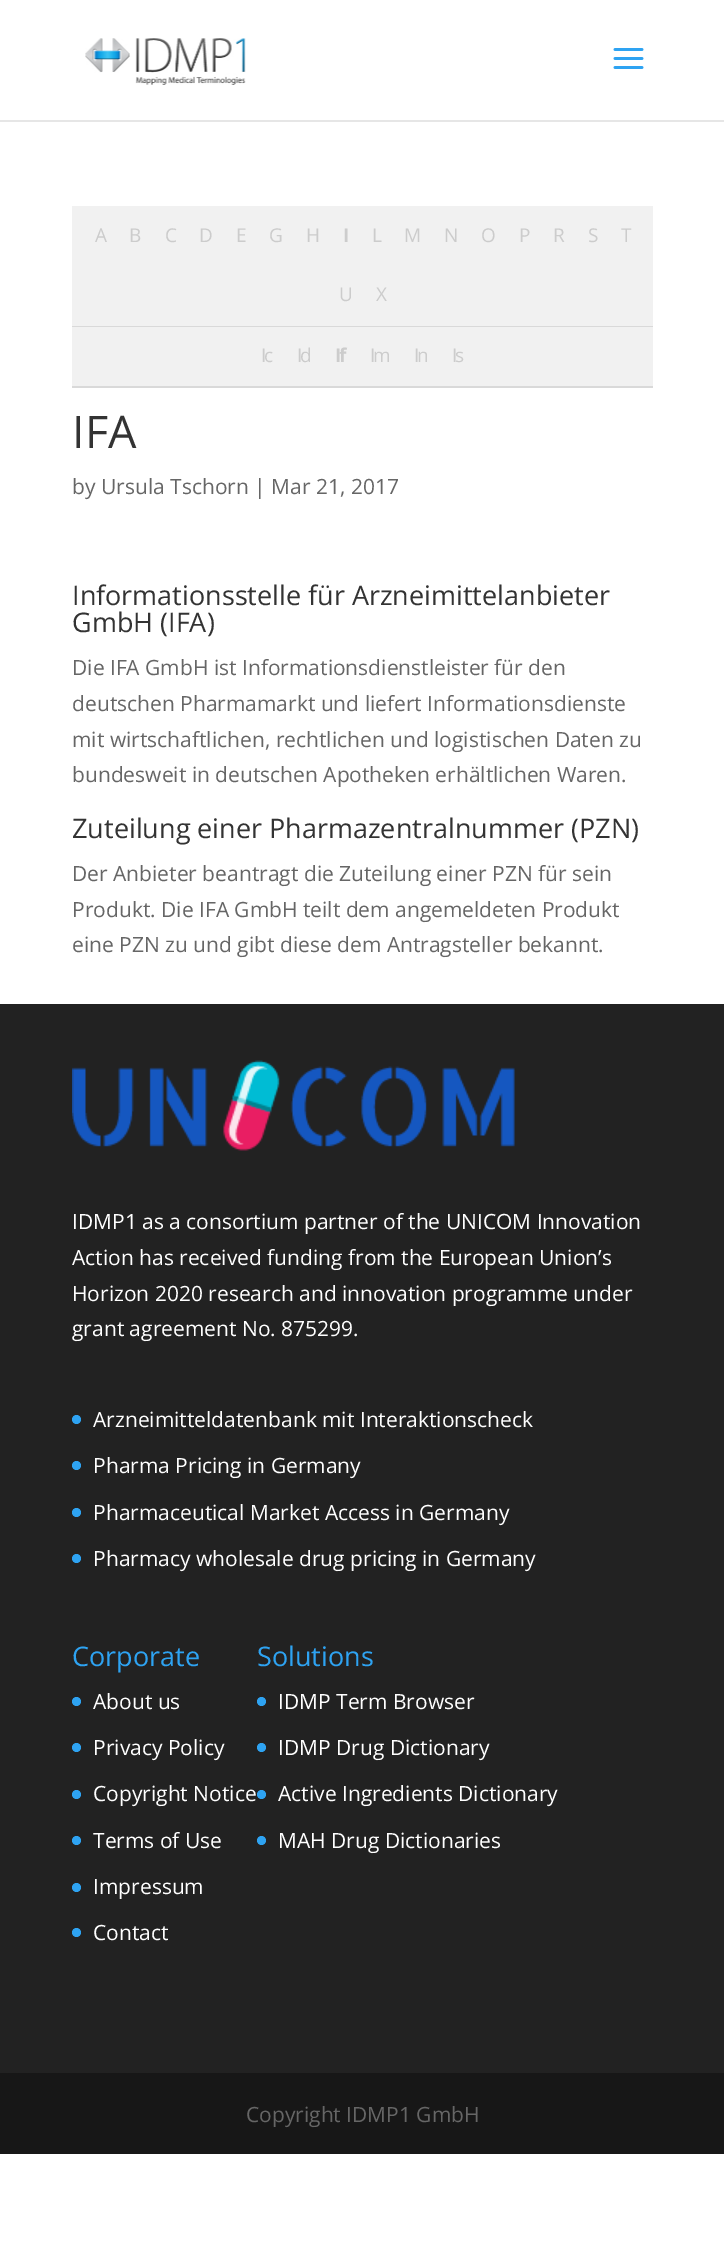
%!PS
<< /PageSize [724 2263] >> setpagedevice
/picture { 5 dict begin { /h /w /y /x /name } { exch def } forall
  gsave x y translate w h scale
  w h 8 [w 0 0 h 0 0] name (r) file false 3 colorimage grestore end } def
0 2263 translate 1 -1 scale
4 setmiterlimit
1 setgray
0 0 724 2263 rectfill
0.902 setgray
newpath 0 120 moveto 0 122 lineto 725 122 lineto 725 2 lineto 724 2 lineto 724 120 lineto closepath fill
(img1.rgb) 85 38 161 47 picture
(img2.rgb) 613 48 31 21 picture
0.945 setgray
72 206 581 120 rectfill
0.851 setgray
72 326 581 1 rectfill
/OpenSans-Regular [19 0 0 -19 0 0] selectfont
0.8 setgray
95 242 moveto -2 0 (A) ashow
129 242 moveto -2 0 (B) ashow
165 242 moveto -2 0 (C) ashow
199 242 moveto -2 0 (D) ashow
236 242 moveto -2 0 (E) ashow
269 242 moveto -2 0 (G) ashow
306 242 moveto -2 0 (H) ashow
/OpenSans-Bold [19 0 0 -19 0 0] selectfont
343 242 moveto -2 0 (I) ashow
/OpenSans-Regular [19 0 0 -19 0 0] selectfont
372 242 moveto -2 0 (L) ashow
404 242 moveto -2 0 (M) ashow
444 242 moveto -2 0 (N) ashow
481 242 moveto -2 0 (O) ashow
519 242 moveto -2 0 (P) ashow
553 242 moveto -2 0 (R) ashow
588 242 moveto -2 0 (S) ashow
621 242 moveto -2 0 (T) ashow
339 301 moveto -2 0 (U) ashow
376 301 moveto -2 0 (X) ashow
0.945 setgray
72 327 581 59 rectfill
0.851 setgray
72 386 581 2 rectfill
0.8 setgray
261 362 moveto -2 0 (Ic) ashow
297 362 moveto -2 0 (Id) ashow
/OpenSans-Bold [19 0 0 -19 0 0] selectfont
335 362 moveto -2 0 (If) ashow
/OpenSans-Regular [19 0 0 -19 0 0] selectfont
370 362 moveto -2 0 (Im) ashow
414 362 moveto -2 0 (In) ashow
452 362 moveto -2 0 (Is) ashow
/OpenSans-Regular [45 0 0 -45 0 0] selectfont
0.2 setgray
72 448 moveto (IFA) show
/OpenSans-Regular [21 0 0 -21 0 0] selectfont
0.4 setgray
72 494 moveto (by Ursula Tschorn | Mar 21, 2017) show
/OpenSans-Regular [27 0 0 -27 0 0] selectfont
0.2 setgray
72 605 moveto (Informationsstelle für Arzneimittelanbieter) show
72 632 moveto (GmbH \(IFA\)) show
/OpenSans-Regular [21 0 0 -21 0 0] selectfont
0.4 setgray
72 675 moveto (Die IFA GmbH ist Informationsdienstleister für den) show
72 711 moveto (deutschen Pharmamarkt und liefert Informationsdienste) show
72 747 moveto (mit wirtschaftlichen, rechtlichen und logistischen Daten zu) show
72 782 moveto (bundesweit in deutschen Apotheken erhältlichen Waren.) show
/OpenSans-Regular [27 0 0 -27 0 0] selectfont
0.2 setgray
72 838 moveto (Zuteilung einer Pharmazentralnummer \(PZN\)) show
/OpenSans-Regular [21 0 0 -21 0 0] selectfont
0.4 setgray
72 881 moveto (Der Anbieter beantragt die Zuteilung einer PZN für sein) show
72 917 moveto (Produkt. Die IFA GmbH teilt dem angemeldeten Produkt) show
72 952 moveto (eine PZN zu und gibt diese dem Antragsteller bekannt.) show
0.133 setgray
0 1004 724 1069 rectfill
(img3.rgb) 72 1060 443 91 picture
1 setgray
72 1229 moveto (IDMP1 as a consortium partner of the UNICOM Innovation) show
72 1265 moveto (Action has received funding from the European Union’s) show
72 1301 moveto (Horizon 2020 research and innovation programme under) show
72 1336 moveto (grant agreement No. 875299.) show
0.18 0.639 0.949 setrgbcolor
newpath 76.5 1419.5 4.5 0 360 arc closepath fill
1 setgray
93 1427 moveto (Arzneimitteldatenbank mit Interaktionscheck) show
0.18 0.639 0.949 setrgbcolor
newpath 76.5 1465.5 4.5 0 360 arc closepath fill
1 setgray
93 1473 moveto (Pharma Pricing in Germany) show
0.18 0.639 0.949 setrgbcolor
newpath 76.5 1512.5 4.5 0 360 arc closepath fill
1 setgray
93 1520 moveto (Pharmaceutical Market Access in Germany) show
0.18 0.639 0.949 setrgbcolor
newpath 76.5 1558.5 4.5 0 360 arc closepath fill
1 setgray
93 1566 moveto (Pharmacy wholesale drug pricing in Germany) show
/OpenSans-Regular [27 0 0 -27 0 0] selectfont
0.18 0.639 0.949 setrgbcolor
72 1666 moveto (Corporate) show
newpath 76.5 1701.5 4.5 0 360 arc closepath fill
/OpenSans-Regular [21 0 0 -21 0 0] selectfont
1 setgray
93 1709 moveto (About us) show
0.18 0.639 0.949 setrgbcolor
newpath 76.5 1747.5 4.5 0 360 arc closepath fill
1 setgray
93 1755 moveto (Privacy Policy) show
0.18 0.639 0.949 setrgbcolor
newpath 76.5 1794.5 4.5 0 360 arc closepath fill
1 setgray
93 1801 moveto (Copyright Notice) show
0.18 0.639 0.949 setrgbcolor
newpath 76.5 1840.5 4.5 0 360 arc closepath fill
1 setgray
93 1848 moveto (Terms of Use) show
0.18 0.639 0.949 setrgbcolor
newpath 76.5 1887.5 4.5 0 360 arc closepath fill
1 setgray
93 1894 moveto (Impressum) show
0.18 0.639 0.949 setrgbcolor
newpath 76.5 1932.5 4.5 0 360 arc closepath fill
1 setgray
93 1940 moveto (Contact) show
/OpenSans-Regular [27 0 0 -27 0 0] selectfont
0.18 0.639 0.949 setrgbcolor
257 1666 moveto (Solutions) show
newpath 261.5 1701.5 4.5 0 360 arc closepath fill
/OpenSans-Regular [21 0 0 -21 0 0] selectfont
1 setgray
278 1709 moveto (IDMP Term Browser) show
0.18 0.639 0.949 setrgbcolor
newpath 261.5 1747.5 4.5 0 360 arc closepath fill
1 setgray
278 1755 moveto (IDMP Drug Dictionary) show
0.18 0.639 0.949 setrgbcolor
newpath 261.5 1794.5 4.5 0 360 arc closepath fill
1 setgray
278 1801 moveto (Active Ingredients Dictionary) show
0.18 0.639 0.949 setrgbcolor
newpath 261.5 1840.5 4.5 0 360 arc closepath fill
1 setgray
278 1848 moveto (MAH Drug Dictionaries) show
0.09 setgray
0 2073 724 81 rectfill
0.4 setgray
246 2122 moveto (Copyright IDMP1 GmbH) show
showpage
